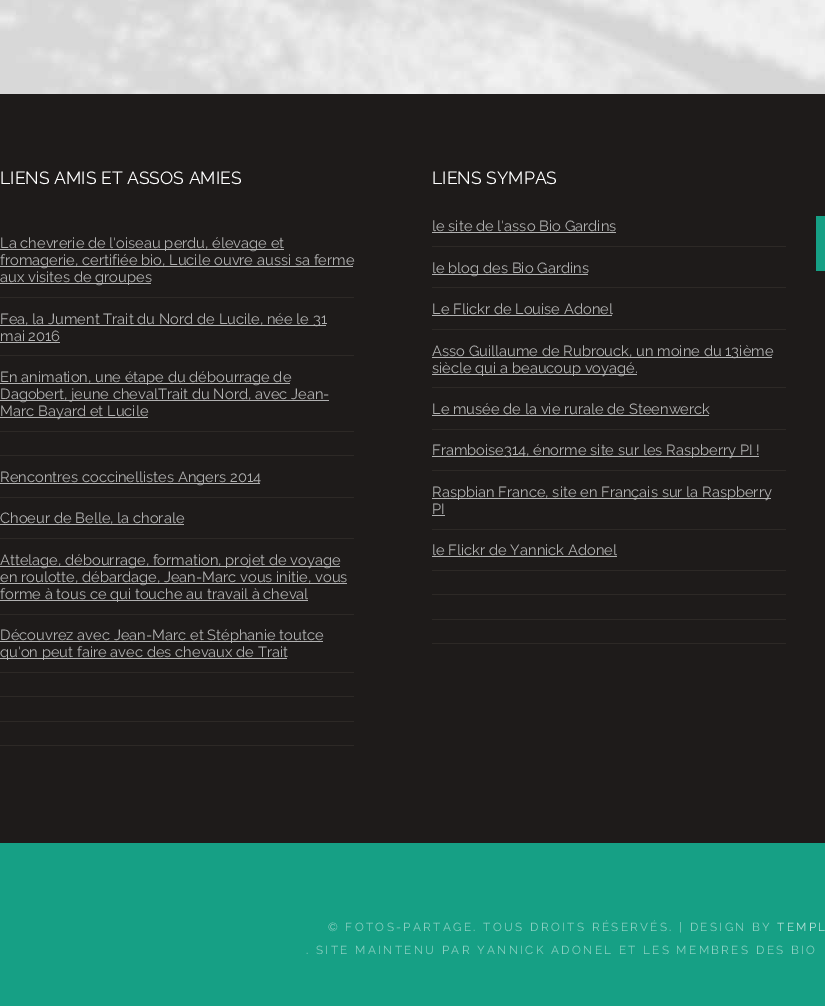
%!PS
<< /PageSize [825 1006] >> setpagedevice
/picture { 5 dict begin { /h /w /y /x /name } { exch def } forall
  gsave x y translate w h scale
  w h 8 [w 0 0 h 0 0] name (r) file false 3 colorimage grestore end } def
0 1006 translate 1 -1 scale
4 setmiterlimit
0.086 0.627 0.522 setrgbcolor
0 0 825 1006 rectfill
(img1.rgb) 0 0 825 94 picture
0.118 0.106 0.102 setrgbcolor
0 94 825 749 rectfill
/Raleway-Regular [17.6 0 0 -17.6 0 0] selectfont
1 setgray
0 184 moveto (LIENS AMIS ET ASSOS AMIES) show
0.694 setgray
0 249 284 1 rectfill
/Raleway-Regular [14.7 0 0 -14.7 0 0] selectfont
0 248 moveto (La chevrerie de l'oiseau perdu, élevage et) show
0 266 353 1 rectfill
0 265 moveto (fromagerie, certifiée bio, Lucile ouvre aussi sa ferme) show
0 283 151 1 rectfill
0 282 moveto (aux visites de groupes) show
0.176 0.161 0.149 setrgbcolor
0 297 354 1 rectfill
0.694 setgray
0 325 326 1 rectfill
0 324 moveto (Fea, la Jument Trait du Nord de Lucile, née le 31) show
0 341 moveto (mai 2016) show
0 342 60 1 rectfill
0.176 0.161 0.149 setrgbcolor
0 355 354 1 rectfill
0.694 setgray
0 383 290 1 rectfill
0 382 moveto (En animation, une étape du débourrage de) show
0 400 329 1 rectfill
0 399 moveto (Dagobert, jeune chevalTrait du Nord, avec Jean-) show
0 417 148 1 rectfill
0 416 moveto (Marc Bayard et Lucile) show
0.176 0.161 0.149 setrgbcolor
0 431 354 1 rectfill
0 455 354 1 rectfill
0.694 setgray
0 483 260 1 rectfill
0 482 moveto (Rencontres coccinellistes Angers 2014) show
0.176 0.161 0.149 setrgbcolor
0 497 354 1 rectfill
0.694 setgray
0 524 184 1 rectfill
0 523 moveto (Choeur de Belle, la chorale) show
0.176 0.161 0.149 setrgbcolor
0 538 354 1 rectfill
0.694 setgray
0 566 340 1 rectfill
0 565 moveto (Attelage, débourrage, formation, projet de voyage) show
0 583 347 1 rectfill
0 582 moveto (en roulotte, débardage, Jean-Marc vous initie, vous) show
0 600 308 1 rectfill
0 599 moveto (forme à tous ce qui touche au travail à cheval) show
0.176 0.161 0.149 setrgbcolor
0 614 354 1 rectfill
0.694 setgray
0 641 323 1 rectfill
0 640 moveto (Découvrez avec Jean-Marc et Stéphanie toutce) show
0 658 287 1 rectfill
0 657 moveto (qu'on peut faire avec des chevaux de Trait) show
0.176 0.161 0.149 setrgbcolor
0 672 354 1 rectfill
0 696 354 1 rectfill
0 721 354 1 rectfill
0 745 354 1 rectfill
/Raleway-Regular [17.6 0 0 -17.6 0 0] selectfont
1 setgray
432 184 moveto (LIENS SYMPAS) show
/Raleway-Regular [14.7 0 0 -14.7 0 0] selectfont
0.694 setgray
432 231 moveto (le site de l'asso Bio Gardins) show
432 232 184 1 rectfill
0.176 0.161 0.149 setrgbcolor
432 246 354 1 rectfill
0.694 setgray
432 274 156 1 rectfill
432 273 moveto (le blog des Bio Gardins) show
0.176 0.161 0.149 setrgbcolor
432 287 354 1 rectfill
0.694 setgray
432 314 moveto (Le Flickr de Louise Adonel) show
432 315 180 1 rectfill
0.176 0.161 0.149 setrgbcolor
432 329 354 1 rectfill
0.694 setgray
432 357 340 1 rectfill
432 356 moveto (Asso Guillaume de Rubrouck, un moine du 13ième) show
432 374 205 1 rectfill
432 373 moveto (siècle qui a beaucoup voyagé.) show
0.176 0.161 0.149 setrgbcolor
432 387 354 1 rectfill
0.694 setgray
432 414 moveto (Le musée de la vie rurale de Steenwerck) show
432 415 277 1 rectfill
0.176 0.161 0.149 setrgbcolor
432 429 354 1 rectfill
0.694 setgray
432 456 327 1 rectfill
432 455 moveto (Framboise314, énorme site sur les Raspberry PI !) show
0.176 0.161 0.149 setrgbcolor
432 470 354 1 rectfill
0.694 setgray
432 498 339 1 rectfill
432 497 moveto (Raspbian France, site en Français sur la Raspberry) show
432 514 moveto (PI) show
432 515 13 1 rectfill
0.176 0.161 0.149 setrgbcolor
432 529 354 1 rectfill
0.694 setgray
432 555 moveto (le Flickr de Yannick Adonel) show
432 556 185 1 rectfill
0.176 0.161 0.149 setrgbcolor
432 570 354 1 rectfill
432 594 354 1 rectfill
432 619 354 1 rectfill
432 643 354 1 rectfill
0.086 0.627 0.522 setrgbcolor
816 216 9 55 rectfill
/Raleway-Regular [11.75 0 0 -11.75 0 0] selectfont
0.545 0.816 0.761 setrgbcolor
328 931 moveto 2.35 0 (© FOTOS-PARTAGE. TOUS DROITS RÉSERVÉS. | DESIGN BY) ashow
0.725 0.89 0.855 setrgbcolor
777 931 moveto 2.35 0 (TEMPL) ashow
0.545 0.816 0.761 setrgbcolor
306 954 moveto 2.35 0 (. SITE MAINTENU PAR YANNICK ADONEL ET LES MEMBRES DES BIO) ashow
showpage
